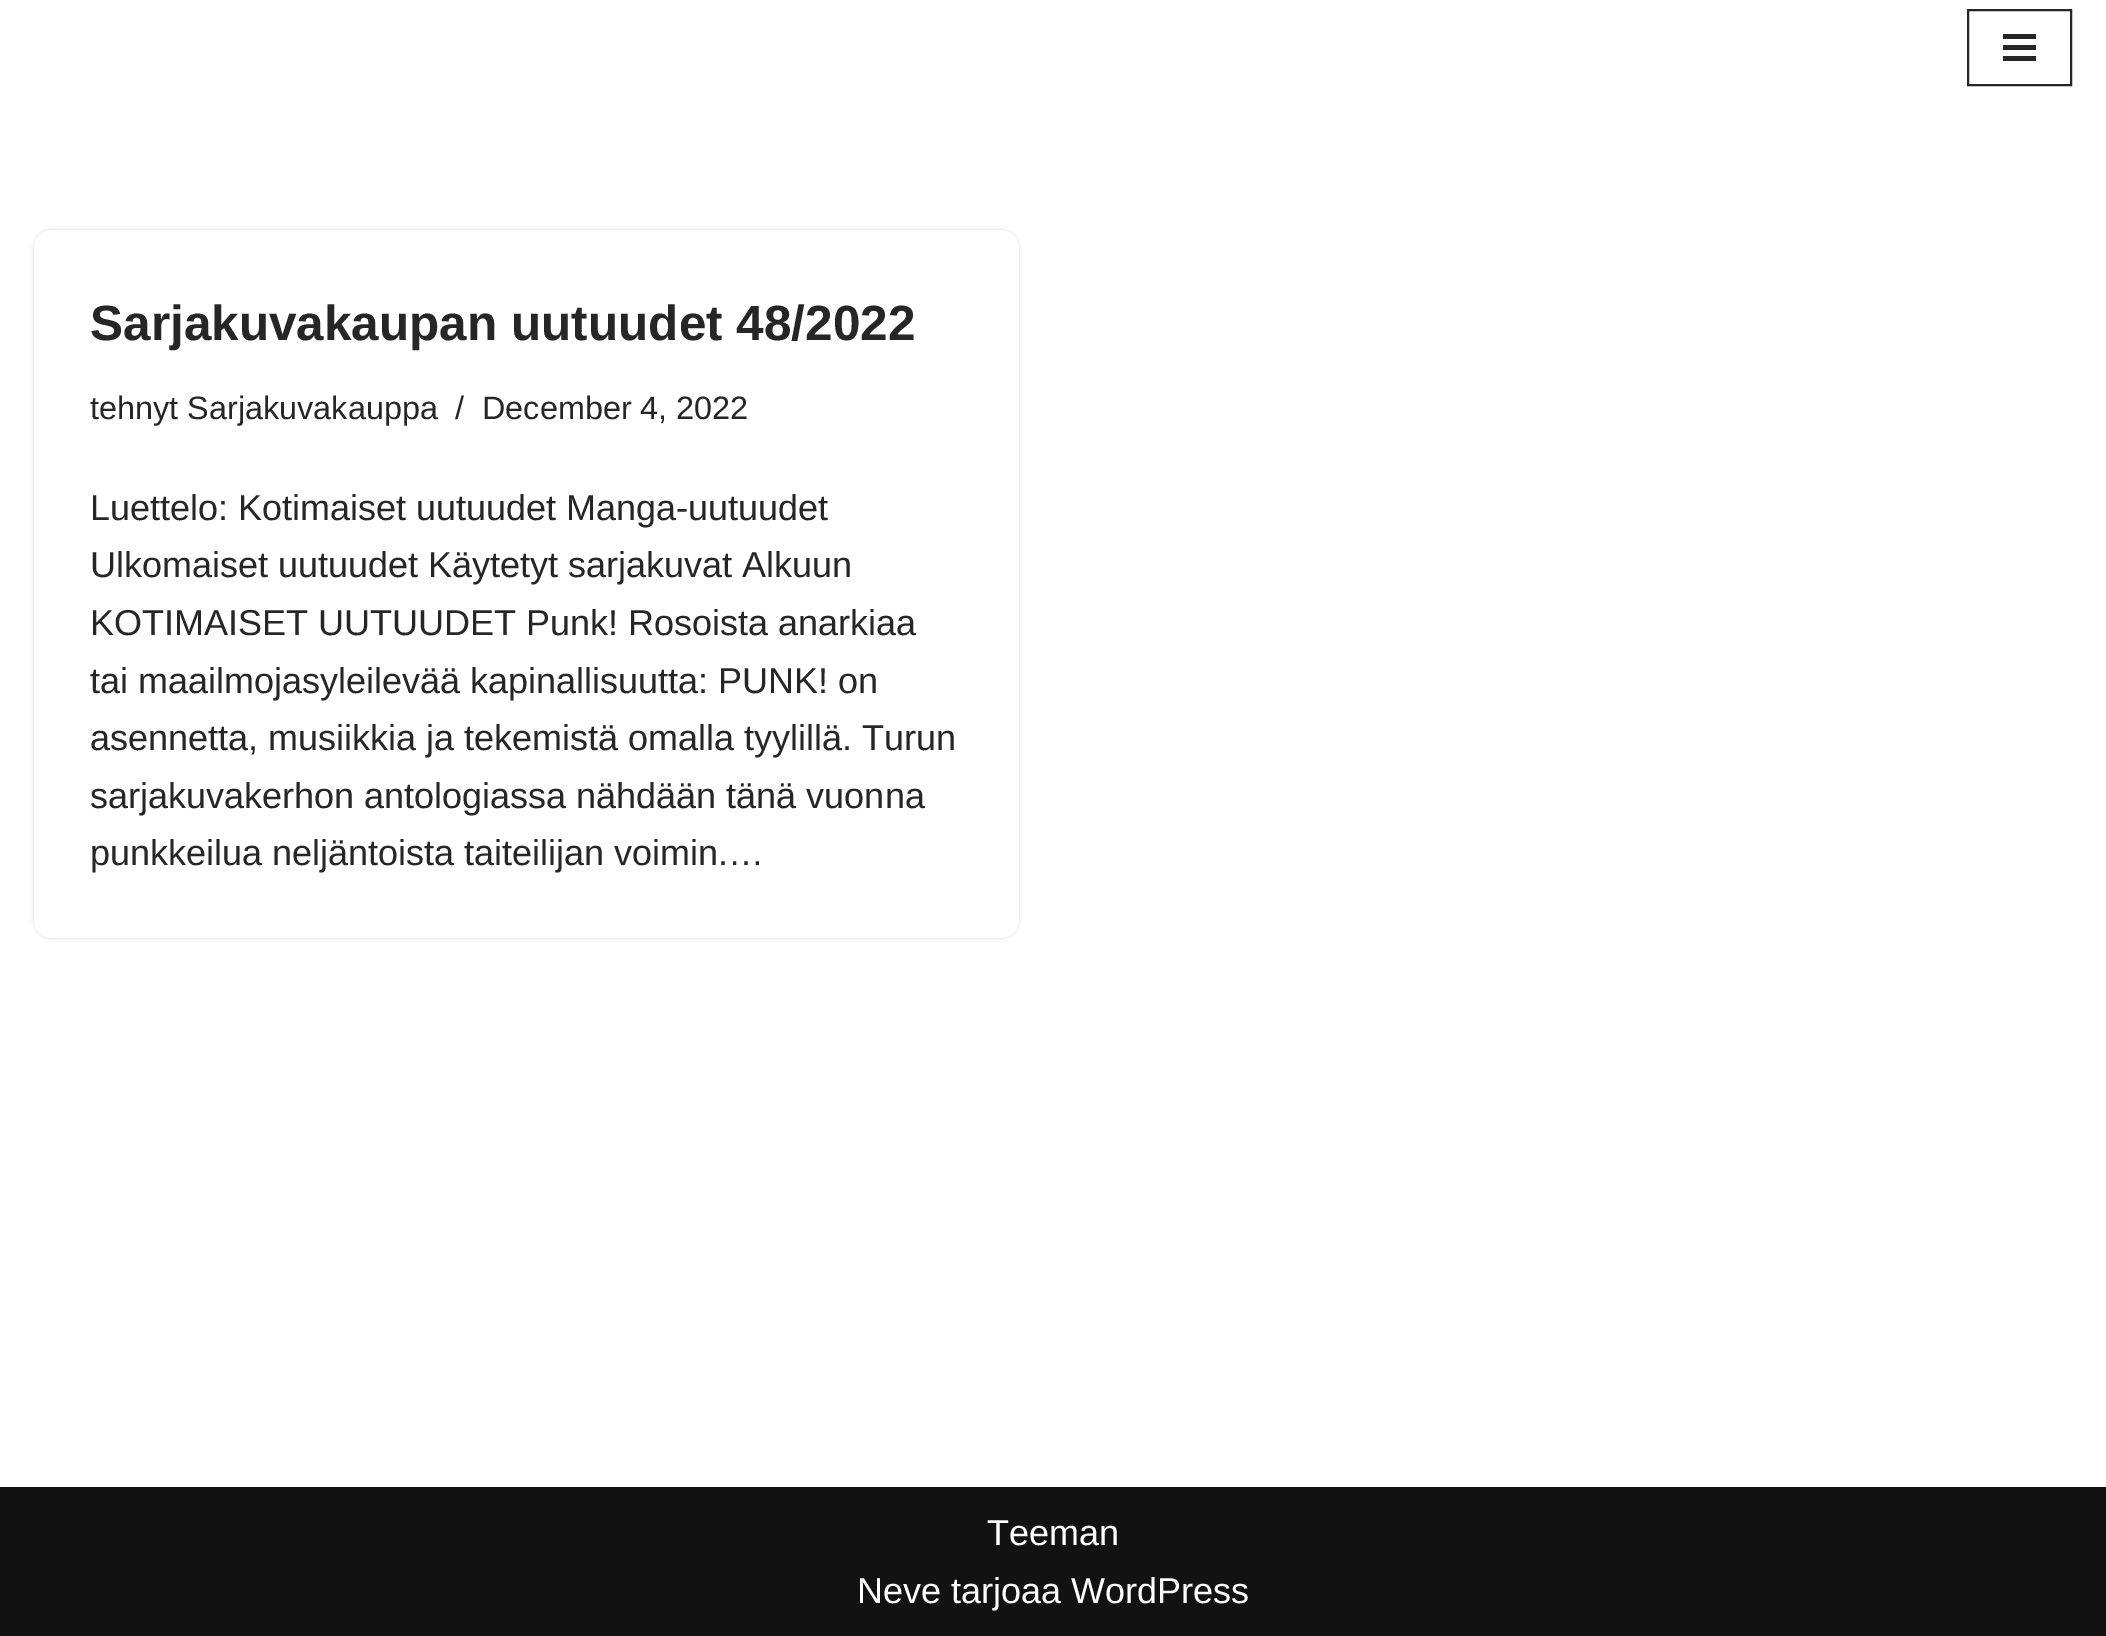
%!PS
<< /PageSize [2106 1636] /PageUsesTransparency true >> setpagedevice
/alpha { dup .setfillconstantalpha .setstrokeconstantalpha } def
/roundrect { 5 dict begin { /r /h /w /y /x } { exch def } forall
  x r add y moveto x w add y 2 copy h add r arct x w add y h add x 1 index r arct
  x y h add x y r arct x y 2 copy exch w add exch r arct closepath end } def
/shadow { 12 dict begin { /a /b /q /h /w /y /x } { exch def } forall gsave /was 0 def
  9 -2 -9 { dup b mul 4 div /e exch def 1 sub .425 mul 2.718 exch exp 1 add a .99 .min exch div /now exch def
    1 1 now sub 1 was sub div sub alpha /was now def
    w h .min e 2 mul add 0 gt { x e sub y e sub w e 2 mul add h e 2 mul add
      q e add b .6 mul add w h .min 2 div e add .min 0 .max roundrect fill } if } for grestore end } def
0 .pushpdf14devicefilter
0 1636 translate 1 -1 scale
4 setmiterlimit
1 setgray
0 0 2106 1636 rectfill
0.153 0.149 0.149 setrgbcolor
2 setlinewidth
1968 10 103 75 rectstroke
2003 34 33 5 rectfill
2003 45 33 5 rectfill
2003 56 33 5 rectfill
0 setgray
34 230 985 708 18 2 0.15 shadow
1 setgray
34 230 985 708 18 roundrect fill
/LiberationSans-Bold [49.5 0 0 -49.5 0 0] selectfont
0.153 0.149 0.149 setrgbcolor
90 340 moveto (Sarjakuvakaupan uutuudet 48/2022) show
/LiberationSans-Regular [32.4 0 0 -32.4 0 0] selectfont
90 419 moveto (tehnyt Sarjakuvakauppa) show
455 419 moveto (/) show
482 419 moveto (December 4, 2022) show
/LiberationSans-Regular [36 0 0 -36 0 0] selectfont
90 520 moveto (Luettelo: Kotimaiset uutuudet Manga-uutuudet) show
90 577 moveto (Ulkomaiset uutuudet Käytetyt sarjakuvat Alkuun) show
90 635 moveto (KOTIMAISET UUTUUDET Punk! Rosoista anarkiaa) show
90 693 moveto (tai maailmojasyleilevää kapinallisuutta: PUNK! on) show
90 750 moveto (asennetta, musiikkia ja tekemistä omalla tyylillä. Turun) show
90 808 moveto (sarjakuvakerhon antologiassa nähdään tänä vuonna) show
90 865 moveto (punkkeilua neljäntoista taiteilijan voimin.…) show
0.071 setgray
0 1487 2106 149 rectfill
1 setgray
987 1545 moveto (Teeman) show
857 1603 moveto (Neve tarjoaa WordPress) show
.poppdf14devicefilter showpage
